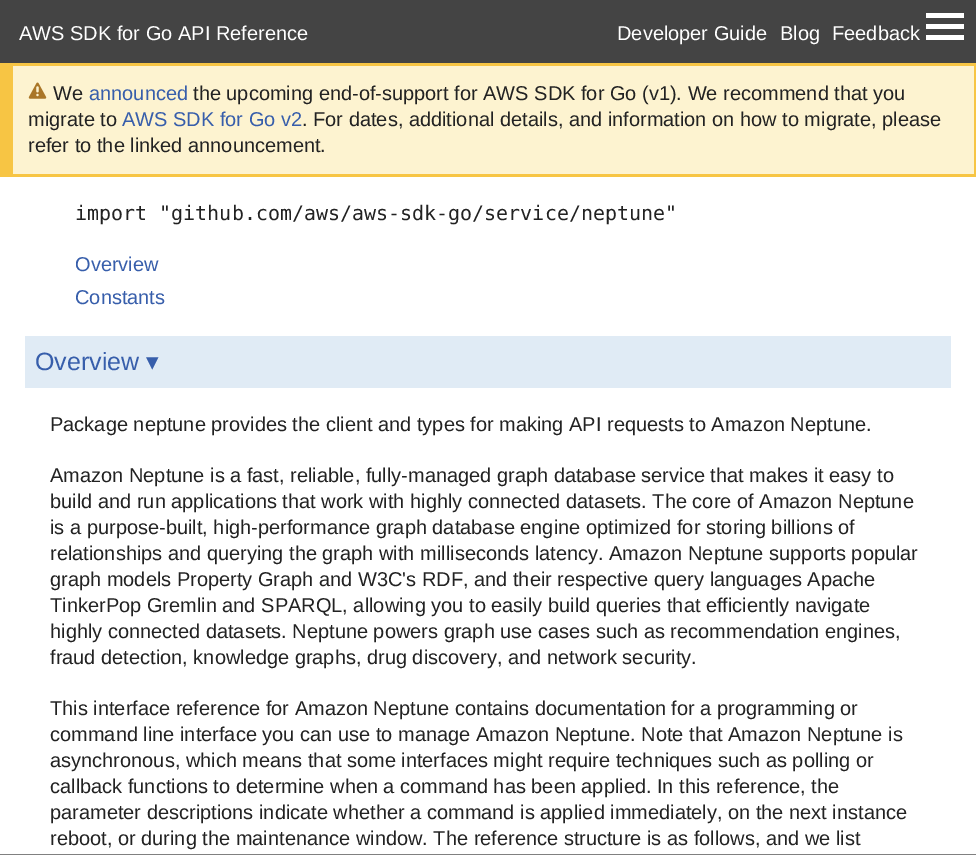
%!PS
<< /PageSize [976 855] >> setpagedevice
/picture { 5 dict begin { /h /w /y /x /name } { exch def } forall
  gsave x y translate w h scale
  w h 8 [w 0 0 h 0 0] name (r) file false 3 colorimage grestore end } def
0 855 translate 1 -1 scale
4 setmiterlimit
1 setgray
0 0 976 855 rectfill
0.267 setgray
0 0 976 63 rectfill
/LiberationSans-Regular [20 0 0 -20 0 0] selectfont
1 setgray
19 40 moveto (AWS SDK for Go API Reference) show
617 40 moveto (Developer Guide) show
780 40 moveto (Blog) show
832 40 moveto (Feedback) show
926 13 38 5 rectfill
926 24 38 5 rectfill
926 35 38 5 rectfill
0.992 0.953 0.816 setrgbcolor
13 66 961 108 rectfill
0.969 0.773 0.267 setrgbcolor
13 63 963 3 rectfill
974 63 2 113 rectfill
0 174 976 3 rectfill
0 63 13 111 rectfill
(img1.rgb) 28 82 19 17 picture
0.133 setgray
53 100 moveto (We) show
0.216 0.369 0.671 setrgbcolor
89 100 moveto (announced) show
0.133 setgray
193 100 moveto (the upcoming end-of-support for AWS SDK for Go \(v1\). We recommend that you) show
28 126 moveto (migrate to) show
0.216 0.369 0.671 setrgbcolor
122 126 moveto (AWS SDK for Go v2) show
0.133 setgray
302 126 moveto (. For dates, additional details, and information on how to migrate, please) show
28 152 moveto (refer to the linked announcement.) show
/DejaVuSansMono-Regular [20 0 0 -20 0 0] selectfont
75 220 moveto (import "github.com/aws/aws-sdk-go/service/neptune") show
/LiberationSans-Regular [20 0 0 -20 0 0] selectfont
0.216 0.369 0.671 setrgbcolor
75 271 moveto (Overview) show
75 304 moveto (Constants) show
0.878 0.922 0.961 setrgbcolor
25 336 926 52 rectfill
/LiberationSans-Regular [25 0 0 -25 0 0] selectfont
0.216 0.369 0.671 setrgbcolor
35 370 moveto (Overview) show
/DejaVuSans-Regular [25 0 0 -25 0 0] selectfont
146 370 moveto (▾) show
/LiberationSans-Regular [20 0 0 -20 0 0] selectfont
0.133 setgray
50 431 moveto (Package neptune provides the client and types for making API requests to Amazon Neptune.) show
50 482 moveto (Amazon Neptune is a fast, reliable, fully-managed graph database service that makes it easy to) show
50 508 moveto (build and run applications that work with highly connected datasets. The core of Amazon Neptune) show
50 534 moveto (is a purpose-built, high-performance graph database engine optimized for storing billions of) show
50 560 moveto (relationships and querying the graph with milliseconds latency. Amazon Neptune supports popular) show
50 586 moveto (graph models Property Graph and W3C's RDF, and their respective query languages Apache) show
50 612 moveto (TinkerPop Gremlin and SPARQL, allowing you to easily build queries that efficiently navigate) show
50 638 moveto (highly connected datasets. Neptune powers graph use cases such as recommendation engines,) show
50 664 moveto (fraud detection, knowledge graphs, drug discovery, and network security.) show
50 715 moveto (This interface reference for Amazon Neptune contains documentation for a programming or) show
50 741 moveto (command line interface you can use to manage Amazon Neptune. Note that Amazon Neptune is) show
50 767 moveto (asynchronous, which means that some interfaces might require techniques such as polling or) show
50 793 moveto (callback functions to determine when a command has been applied. In this reference, the) show
50 819 moveto (parameter descriptions indicate whether a command is applied immediately, on the next instance) show
50 845 moveto (reboot, or during the maintenance window. The reference structure is as follows, and we list) show
0.502 setgray
0 854 976 1 rectfill
showpage
